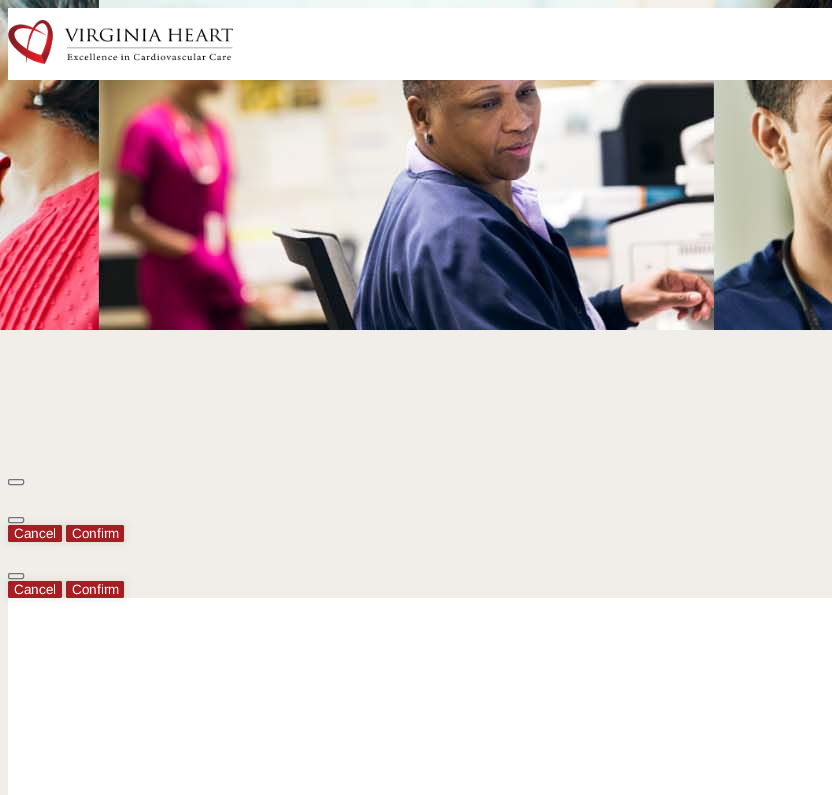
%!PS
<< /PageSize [832 795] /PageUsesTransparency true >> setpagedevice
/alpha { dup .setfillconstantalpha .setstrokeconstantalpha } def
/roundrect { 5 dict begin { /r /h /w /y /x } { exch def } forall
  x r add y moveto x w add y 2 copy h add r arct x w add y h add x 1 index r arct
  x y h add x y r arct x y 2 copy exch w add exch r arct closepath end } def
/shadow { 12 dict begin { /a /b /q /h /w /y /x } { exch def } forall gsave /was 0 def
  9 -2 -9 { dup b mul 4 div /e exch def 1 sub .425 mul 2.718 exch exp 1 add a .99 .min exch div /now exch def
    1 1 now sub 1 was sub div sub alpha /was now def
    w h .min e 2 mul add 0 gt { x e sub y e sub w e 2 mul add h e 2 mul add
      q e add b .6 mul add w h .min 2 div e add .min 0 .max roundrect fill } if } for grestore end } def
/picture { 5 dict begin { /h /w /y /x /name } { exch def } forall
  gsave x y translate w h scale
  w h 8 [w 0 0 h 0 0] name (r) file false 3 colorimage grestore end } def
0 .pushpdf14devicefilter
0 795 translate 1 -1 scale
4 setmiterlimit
0.945 0.929 0.91 setrgbcolor
0 0 832 795 rectfill
(img1.rgb) 0 0 832 330 picture
1 setgray
8 8 824 72 rectfill
(img2.rgb) 8 20 225 44 picture
0.937 setgray
8.5 479.5 15 5 1.5 roundrect gsave fill grestore
0.463 setgray
stroke
0.937 setgray
8.5 517.5 15 5 1.5 roundrect gsave fill grestore
0.463 setgray
stroke
0 setgray
8 525 54 17 2 4 0.09 shadow
0.651 0.118 0.133 setrgbcolor
8 525 54 17 2 roundrect fill
/LiberationSans-Regular [13.5 0 0 -13.5 0 0] selectfont
1 setgray
14 538 moveto (Cancel) show
0 setgray
66 525 58 17 2 4 0.09 shadow
0.651 0.118 0.133 setrgbcolor
66 525 58 17 2 roundrect fill
1 setgray
72 538 moveto (Confirm) show
0.937 setgray
8.5 573.5 15 5 1.5 roundrect gsave fill grestore
0.463 setgray
stroke
1 setgray
8 598 824 197 rectfill
0 setgray
8 581 54 17 2 4 0.09 shadow
0.651 0.118 0.133 setrgbcolor
8 581 54 17 2 roundrect fill
1 setgray
14 594 moveto (Cancel) show
0 setgray
66 581 58 17 2 4 0.09 shadow
0.651 0.118 0.133 setrgbcolor
66 581 58 17 2 roundrect fill
1 setgray
72 594 moveto (Confirm) show
.poppdf14devicefilter showpage
